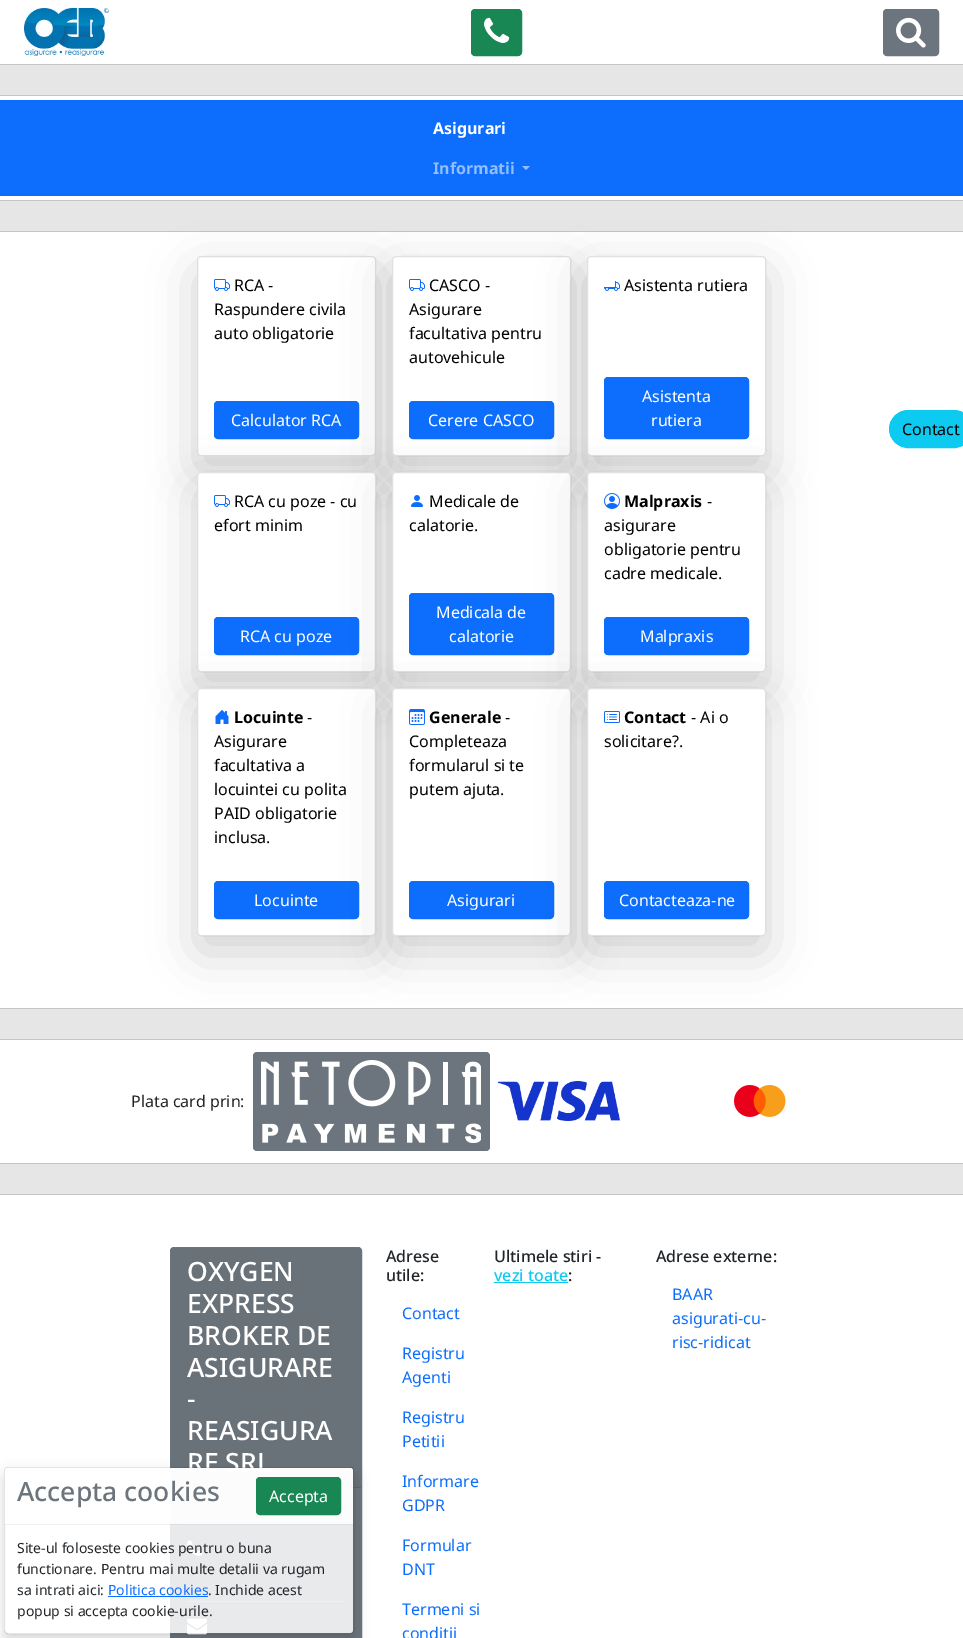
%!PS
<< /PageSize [963 1638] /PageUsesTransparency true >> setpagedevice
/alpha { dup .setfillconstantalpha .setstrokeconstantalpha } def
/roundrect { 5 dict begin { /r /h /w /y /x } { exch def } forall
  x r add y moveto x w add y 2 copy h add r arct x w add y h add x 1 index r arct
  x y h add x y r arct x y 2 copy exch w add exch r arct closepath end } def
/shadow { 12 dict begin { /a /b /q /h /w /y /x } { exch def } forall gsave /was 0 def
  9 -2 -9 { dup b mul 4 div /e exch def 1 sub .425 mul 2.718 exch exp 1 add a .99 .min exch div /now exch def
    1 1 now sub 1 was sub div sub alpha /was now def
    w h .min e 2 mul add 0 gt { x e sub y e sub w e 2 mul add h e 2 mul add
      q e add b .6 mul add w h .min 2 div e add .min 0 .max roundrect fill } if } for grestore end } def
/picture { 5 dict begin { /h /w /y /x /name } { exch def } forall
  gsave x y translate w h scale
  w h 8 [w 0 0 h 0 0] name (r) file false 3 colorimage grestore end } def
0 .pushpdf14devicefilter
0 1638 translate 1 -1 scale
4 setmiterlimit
1 setgray
0 0 963 1638 rectfill
(img1.rgb) 24 8 85 48 picture
0.098 0.529 0.329 setrgbcolor
471.5 9.5 50 46 3.5 roundrect gsave fill grestore
stroke
(img2.rgb) 484 17 26 26 picture
0.424 0.459 0.49 setrgbcolor
883.5 9.5 55 46 3.5 roundrect gsave fill grestore
stroke
(img3.rgb) 896 17 30 31 picture
0.902 setgray
0 65 963 30 rectfill
0.769 setgray
0 64 963 1 rectfill
0 95 963 1 rectfill
0.051 0.431 0.992 setrgbcolor
0 100 963 96 rectfill
/NotoSans-Bold [16 0 0 -16 0 0] selectfont
1 setgray
433 134 moveto (Asigurari) show
0.573 0.745 0.996 setrgbcolor
433 174 moveto (Informatii) show
newpath 522 166 moveto 530 166 lineto 526 170 lineto closepath fill
0.902 setgray
0 201 963 30 rectfill
0.769 setgray
0 200 963 1 rectfill
0 231 963 1 rectfill
0 setgray
197 272 179 200 4 24 0.18 shadow
1 setgray
197.5 256.5 178 199 3.5 roundrect gsave fill grestore
0.875 setgray
stroke
(img4.rgb) 214 279 16 12 picture
/NotoSans-Regular [16 0 0 -16 0 0] selectfont
0 setgray
234 291 moveto (RCA -) show
214 315 moveto (Raspundere civila) show
214 339 moveto (auto obligatorie) show
0.051 0.431 0.992 setrgbcolor
214.5 401.5 144 37 3.5 roundrect gsave fill grestore
stroke
1 setgray
231 426 moveto (Calculator RCA) show
0 setgray
392 272 179 200 4 24 0.18 shadow
1 setgray
392 256 179 200 4 roundrect fill
0.12 alpha
0 setgray
392.5 256.5 178 199 3.5 roundrect stroke
1 alpha
(img4.rgb) 409 279 16 12 picture
429 291 moveto (CASCO -) show
409 315 moveto (Asigurare) show
409 339 moveto (facultativa pentru) show
409 363 moveto (autovehicule) show
0.051 0.431 0.992 setrgbcolor
409.5 401.5 144 37 3.5 roundrect gsave fill grestore
stroke
1 setgray
428 426 moveto (Cerere CASCO) show
0 setgray
587 272 179 200 4 24 0.18 shadow
1 setgray
587 256 179 200 4 roundrect fill
0.12 alpha
0 setgray
587.5 256.5 178 199 3.5 roundrect stroke
1 alpha
(img5.rgb) 604 281 16 10 picture
624 291 moveto (Asistenta rutiera) show
0.051 0.431 0.992 setrgbcolor
604.5 377.5 144 61 3.5 roundrect gsave fill grestore
stroke
1 setgray
642 402 moveto (Asistenta) show
651 426 moveto (rutiera) show
0 setgray
197 488 179 200 4 24 0.18 shadow
1 setgray
197 472 179 200 4 roundrect fill
0.12 alpha
0 setgray
197.5 472.5 178 199 3.5 roundrect stroke
1 alpha
(img4.rgb) 214 495 16 12 picture
234 507 moveto (RCA cu poze - cu) show
214 531 moveto (efort minim) show
0.051 0.431 0.992 setrgbcolor
214.5 617.5 144 37 3.5 roundrect gsave fill grestore
stroke
1 setgray
240 642 moveto (RCA cu poze) show
0 setgray
392 488 179 200 4 24 0.18 shadow
1 setgray
392 472 179 200 4 roundrect fill
0.12 alpha
0 setgray
392.5 472.5 178 199 3.5 roundrect stroke
1 alpha
(img6.rgb) 411 495 12 12 picture
429 507 moveto (Medicale de) show
409 531 moveto (calatorie.) show
0.051 0.431 0.992 setrgbcolor
409.5 593.5 144 61 3.5 roundrect gsave fill grestore
stroke
1 setgray
436 618 moveto (Medicala de) show
449 642 moveto (calatorie) show
0 setgray
587 488 179 200 4 24 0.18 shadow
1 setgray
587 472 179 200 4 roundrect fill
0.12 alpha
0 setgray
587.5 472.5 178 199 3.5 roundrect stroke
1 alpha
(img7.rgb) 604 493 16 16 picture
/NotoSans-Bold [16 0 0 -16 0 0] selectfont
624 507 moveto (Malpraxis) show
/NotoSans-Regular [16 0 0 -16 0 0] selectfont
707 507 moveto (-) show
604 531 moveto (asigurare) show
604 555 moveto (obligatorie pentru) show
604 579 moveto (cadre medicale.) show
0.051 0.431 0.992 setrgbcolor
604.5 617.5 144 37 3.5 roundrect gsave fill grestore
stroke
1 setgray
640 642 moveto (Malpraxis) show
0.902 setgray
0 1009 963 30 rectfill
0.769 setgray
0 1008 963 1 rectfill
0 setgray
197 704 179 248 4 24 0.18 shadow
1 setgray
197 688 179 248 4 roundrect fill
0.12 alpha
0 setgray
197.5 688.5 178 247 3.5 roundrect stroke
1 alpha
(img8.rgb) 215 710 14 14 picture
/NotoSans-Bold [16 0 0 -16 0 0] selectfont
234 723 moveto (Locuinte) show
/NotoSans-Regular [16 0 0 -16 0 0] selectfont
307 723 moveto (-) show
214 747 moveto (Asigurare) show
214 771 moveto (facultativa a) show
214 795 moveto (locuintei cu polita) show
214 819 moveto (PAID obligatorie) show
214 843 moveto (inclusa.) show
0.051 0.431 0.992 setrgbcolor
214.5 881.5 144 37 3.5 roundrect gsave fill grestore
stroke
1 setgray
254 906 moveto (Locuinte) show
0 setgray
392 704 179 248 4 24 0.18 shadow
1 setgray
392 688 179 248 4 roundrect fill
0.12 alpha
0 setgray
392.5 688.5 178 247 3.5 roundrect stroke
1 alpha
(img9.rgb) 409 709 16 16 picture
/NotoSans-Bold [16 0 0 -16 0 0] selectfont
429 723 moveto (Generale) show
/NotoSans-Regular [16 0 0 -16 0 0] selectfont
505 723 moveto (-) show
409 747 moveto (Completeaza) show
409 771 moveto (formularul si te) show
409 795 moveto (putem ajuta.) show
0.051 0.431 0.992 setrgbcolor
409.5 881.5 144 37 3.5 roundrect gsave fill grestore
stroke
1 setgray
447 906 moveto (Asigurari) show
0 setgray
587 704 179 248 4 24 0.18 shadow
1 setgray
587 688 179 248 4 roundrect fill
0.12 alpha
0 setgray
587.5 688.5 178 247 3.5 roundrect stroke
1 alpha
(img10.rgb) 604 711 16 12 picture
/NotoSans-Bold [16 0 0 -16 0 0] selectfont
624 723 moveto (Contact) show
/NotoSans-Regular [16 0 0 -16 0 0] selectfont
691 723 moveto (- Ai o) show
604 747 moveto (solicitare?.) show
0.051 0.431 0.992 setrgbcolor
604.5 881.5 144 37 3.5 roundrect gsave fill grestore
stroke
1 setgray
619 906 moveto (Contacteaza-ne) show
0.051 0.792 0.941 setrgbcolor
889.5 410.5 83 37 18.5 roundrect gsave fill grestore
stroke
0 setgray
902 435 moveto (Contact) show
0.769 setgray
0 1039 963 1 rectfill
0.129 0.145 0.161 setrgbcolor
131 1107 moveto (Plata card prin:) show
0.424 0.459 0.49 setrgbcolor
253 1052 237 99 4 roundrect fill
(img11.rgb) 261 1060 220 83 picture
(img12.rgb) 498 1081 122 40 picture
(img13.rgb) 734 1085 52 32 picture
0.902 setgray
0 1164 963 30 rectfill
0.769 setgray
0 1163 963 1 rectfill
0 1194 963 1 rectfill
0.424 0.459 0.49 setrgbcolor
170.5 1247.5 191 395 3.5 roundrect gsave fill grestore
stroke
0.412 0.443 0.475 setrgbcolor
newpath 174 1248 moveto 358 1248 lineto 359.5 1248 361 1249.5 361 1251 curveto 361 1488 lineto 171 1488 lineto 171 1251 lineto 171 1249.5 172.5 1248 174 1248 curveto closepath fill
0.361 0.388 0.416 setrgbcolor
171 1487 190 1 rectfill
0.569 0.596 0.62 setrgbcolor
187 1520 158 1 rectfill
(img14.rgb) 187 1540 16 16 picture
187 1601 158 1 rectfill
(img15.rgb) 187 1618 20 17 picture
gsave
newpath 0 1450 moveto 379 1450 lineto 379 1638 lineto 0 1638 lineto closepath 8 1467 moveto 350 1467 lineto 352 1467 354 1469 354 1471 curveto 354 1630 lineto 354 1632 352 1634 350 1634 curveto 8 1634 lineto 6 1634 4 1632 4 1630 curveto 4 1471 lineto 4 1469 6 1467 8 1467 curveto closepath eoclip newpath
0 setgray
4 1475 350 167 4 8 0.15 shadow
grestore
/NotoSans-Medium [26.5 0 0 -26.5 0 0] selectfont
1 setgray
187 1472 moveto (RE SRL) show
0.85 alpha
5 1468 348 165 3 roundrect fill
0.1 alpha
0 setgray
4.5 1467.5 349 166 3.5 roundrect stroke
0.85 alpha
1 setgray
newpath 8 1468 moveto 350 1468 lineto 351.5 1468 353 1469.5 353 1471 curveto 353 1524 lineto 5 1524 lineto 5 1471 lineto 5 1469.5 6.5 1468 8 1468 curveto closepath fill
0.05 alpha
0 setgray
5 1524 348 1 rectfill
1 alpha
0.424 0.459 0.49 setrgbcolor
17 1501 moveto (Accepta cookies) show
0.098 0.529 0.329 setrgbcolor
256.5 1477.5 84 37 3.5 roundrect gsave fill grestore
stroke
/NotoSans-Regular [16 0 0 -16 0 0] selectfont
1 setgray
269 1502 moveto (Accepta) show
/NotoSans-Regular [14 0 0 -14 0 0] selectfont
0.129 0.145 0.161 setrgbcolor
17 1553 moveto (Site-ul foloseste cookies pentru o buna) show
17 1574 moveto (functionare. Pentru mai multe detalii va rugam) show
17 1595 moveto (sa intrati aici:) show
0.051 0.431 0.992 setrgbcolor
108 1595 moveto (Politica cookies) show
108 1596 100 1 rectfill
0.129 0.145 0.161 setrgbcolor
208 1595 moveto (. Inchide acest) show
17 1616 moveto (popup si accepta cookie-urile.) show
/NotoSans-Medium [26.5 0 0 -26.5 0 0] selectfont
1 setgray
187 1281 moveto (OXYGEN) show
187 1313 moveto (EXPRESS) show
187 1345 moveto (BROKER DE) show
187 1377 moveto (ASIGURARE) show
187 1408 moveto (-) show
187 1440 moveto (REASIGURA) show
/NotoSans-Medium [16 0 0 -16 0 0] selectfont
0.129 0.145 0.161 setrgbcolor
386 1262 moveto (Adrese) show
386 1281 moveto (utile:) show
/NotoSans-Regular [16 0 0 -16 0 0] selectfont
0.051 0.431 0.992 setrgbcolor
402 1319 moveto (Contact) show
402 1359 moveto (Registru) show
402 1383 moveto (Agenti) show
402 1423 moveto (Registru) show
402 1447 moveto (Petitii) show
402 1487 moveto (Informare) show
402 1511 moveto (GDPR) show
402 1551 moveto (Formular) show
402 1575 moveto (DNT) show
402 1615 moveto (Termeni si) show
402 1639 moveto (conditii) show
/NotoSans-Medium [16 0 0 -16 0 0] selectfont
0.129 0.145 0.161 setrgbcolor
494 1262 moveto (Ultimele stiri -) show
0.051 0.792 0.941 setrgbcolor
494 1281 moveto (vezi toate) show
494 1282 74 1 rectfill
0.129 0.145 0.161 setrgbcolor
568 1281 moveto (:) show
656 1262 moveto (Adrese externe:) show
/NotoSans-Regular [16 0 0 -16 0 0] selectfont
0.051 0.431 0.992 setrgbcolor
672 1300 moveto (BAAR) show
672 1324 moveto (asigurati-cu-) show
672 1348 moveto (risc-ridicat) show
.poppdf14devicefilter showpage
